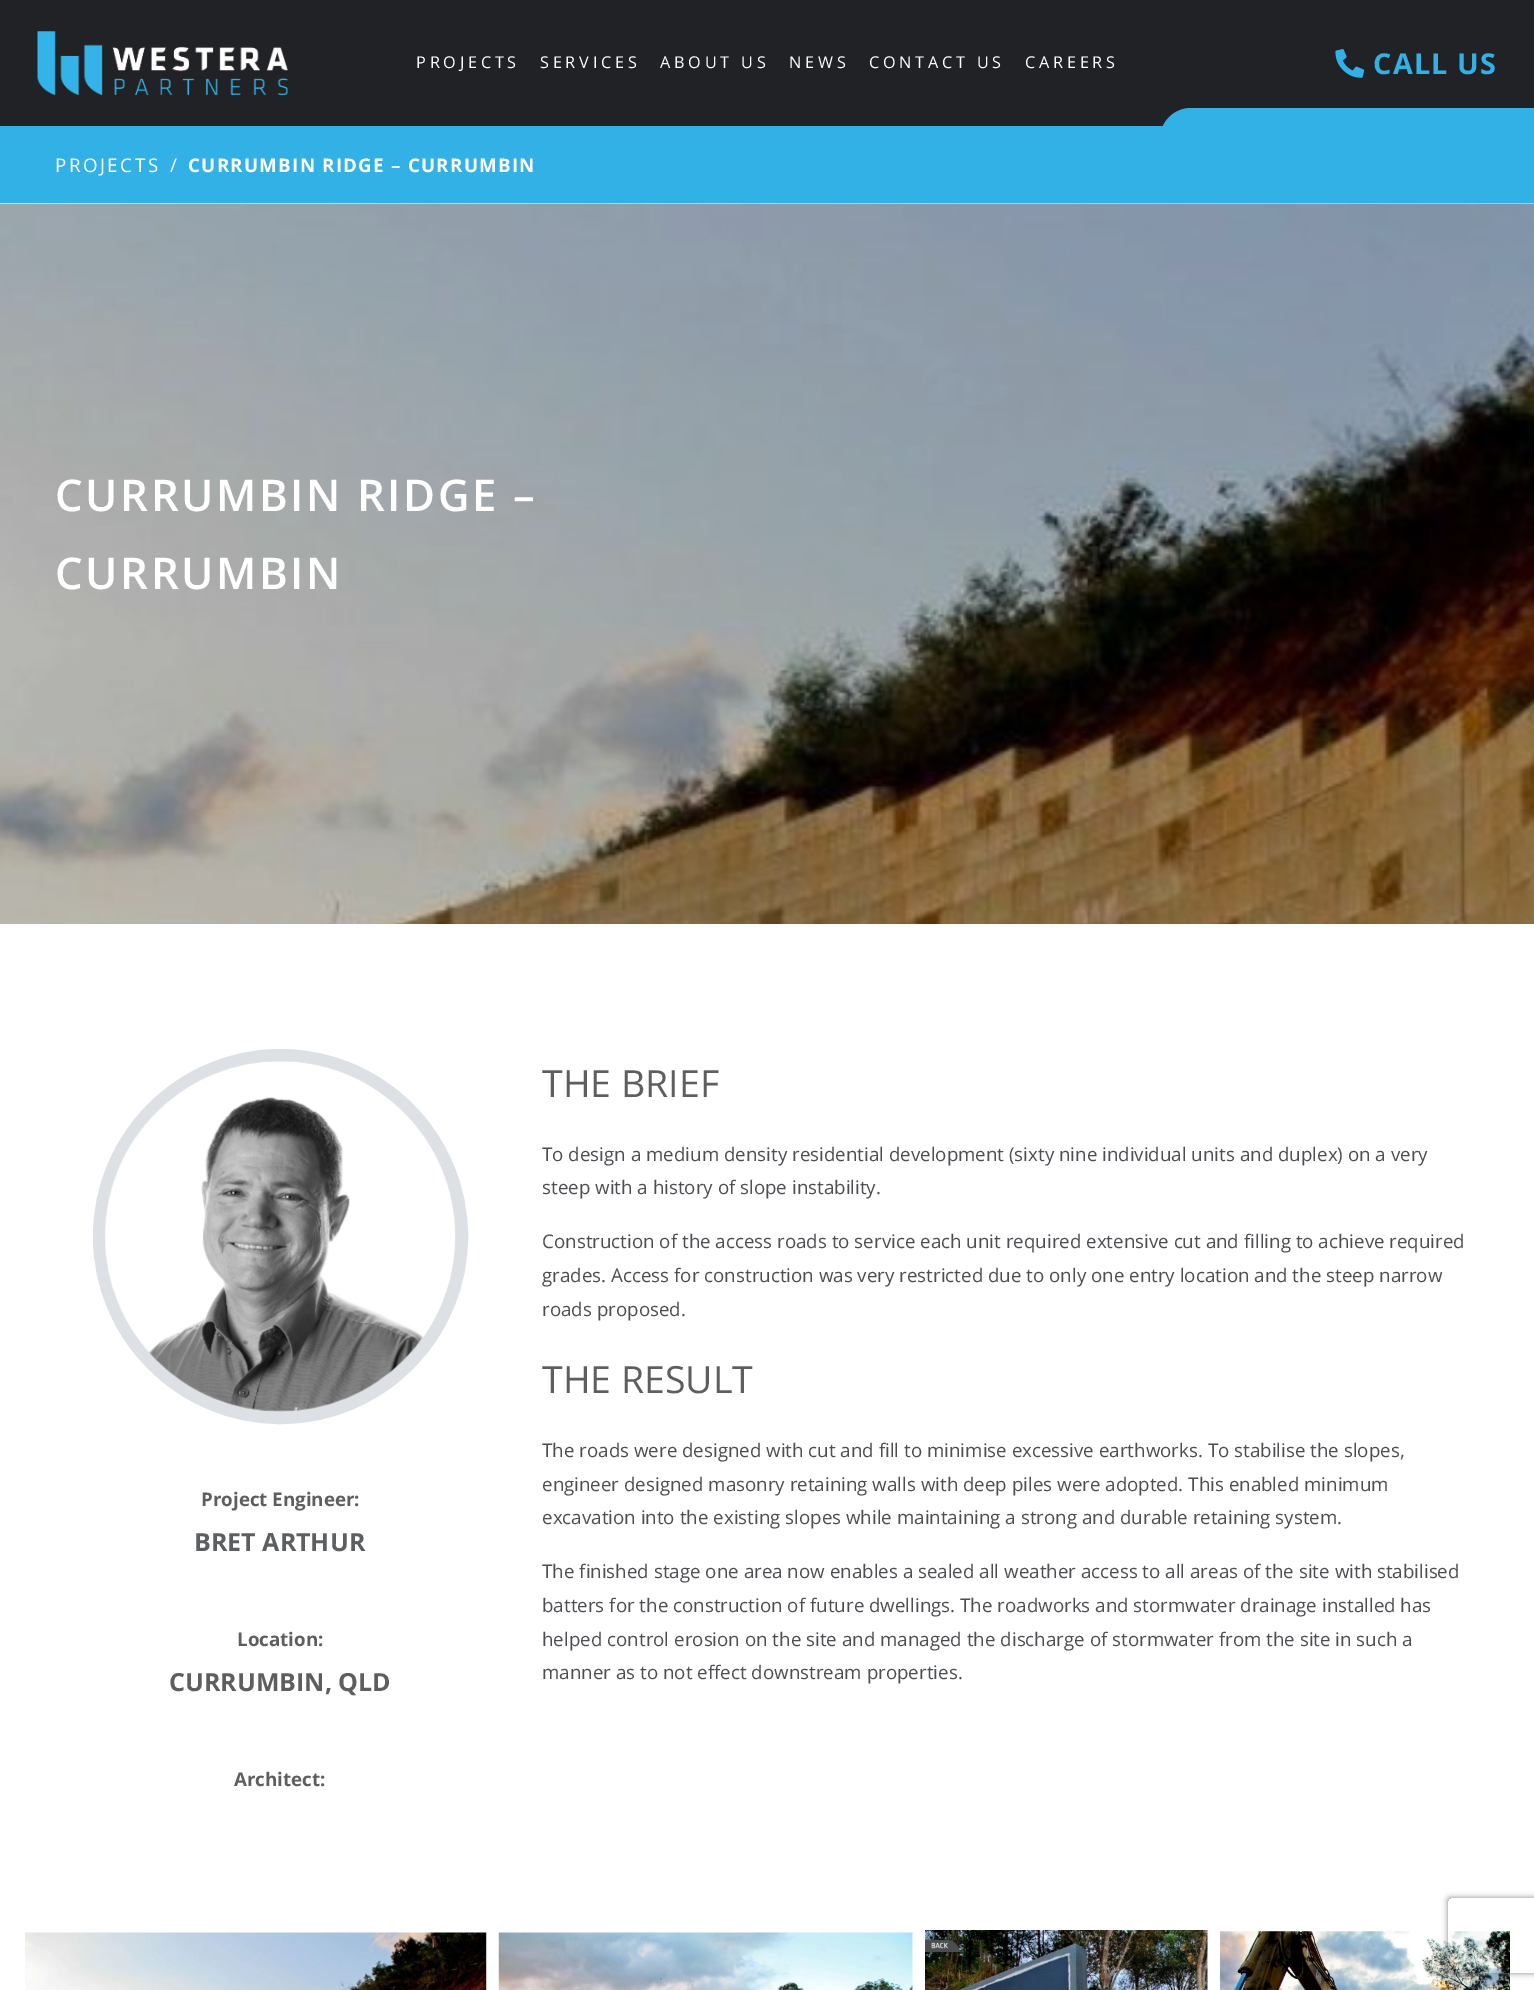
%!PS
<< /PageSize [1534 1990] /PageUsesTransparency true >> setpagedevice
/alpha { dup .setfillconstantalpha .setstrokeconstantalpha } def
/roundrect { 5 dict begin { /r /h /w /y /x } { exch def } forall
  x r add y moveto x w add y 2 copy h add r arct x w add y h add x 1 index r arct
  x y h add x y r arct x y 2 copy exch w add exch r arct closepath end } def
/shadow { 12 dict begin { /a /b /q /h /w /y /x } { exch def } forall gsave /was 0 def
  9 -2 -9 { dup b mul 4 div /e exch def 1 sub .425 mul 2.718 exch exp 1 add a .99 .min exch div /now exch def
    1 1 now sub 1 was sub div sub alpha /was now def
    w h .min e 2 mul add 0 gt { x e sub y e sub w e 2 mul add h e 2 mul add
      q e add b .6 mul add w h .min 2 div e add .min 0 .max roundrect fill } if } for grestore end } def
/picture { 5 dict begin { /h /w /y /x /name } { exch def } forall
  gsave x y translate w h scale
  w h 8 [w 0 0 h 0 0] name (r) file false 3 colorimage grestore end } def
0 .pushpdf14devicefilter
0 1990 translate 1 -1 scale
4 setmiterlimit
1 setgray
0 0 1534 1990 rectfill
0.129 0.133 0.145 setrgbcolor
0 0 1534 126 rectfill
(img1.rgb) 37 31 251 64 picture
/OpenSans-Regular [16.25 0 0 -16.25 0 0] selectfont
1 setgray
416 68 moveto 3.75 0 (PROJECTS) ashow
540 68 moveto 3.75 0 (SERVICES) ashow
660 68 moveto 3.75 0 (ABOUT US) ashow
789 68 moveto 3.75 0 (NEWS) ashow
869 68 moveto 3.75 0 (CONTACT US) ashow
1025 68 moveto 3.75 0 (CAREERS) ashow
(img2.rgb) 1335 49 30 29 picture
/OpenSans-Bold [28.75 0 0 -28.75 0 0] selectfont
0.196 0.694 0.906 setrgbcolor
1373 74 moveto 1.25 0 (CALL US) ashow
0 126 1534 77 rectfill
newpath 1191 108 moveto 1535 108 lineto 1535 139 lineto 1160 139 lineto 1160 122 1174 108 1191 108 curveto closepath fill
/OpenSans-Regular [18.75 0 0 -18.75 0 0] selectfont
1 setgray
55 172 moveto 2.5 0 (PROJECTS) ashow
170 172 moveto 1.25 0 (/) ashow
/OpenSans-Bold [18.75 0 0 -18.75 0 0] selectfont
188 172 moveto 1.25 0 (CURRUMBIN RIDGE – CURRUMBIN) ashow
(img3.rgb) 0 203 1534 721 picture
/OpenSans-SemiBold [43.75 0 0 -43.75 0 0] selectfont
55 511 moveto 2.5 0 (CURRUMBIN RIDGE –) ashow
55 589 moveto 2.5 0 (CURRUMBIN) ashow
0.867 0.878 0.894 setrgbcolor
13 setlinewidth
newpath 280.5 1236.5 181 0 360 arc closepath stroke
(img4.rgb) 105 1061 351 351 picture
/OpenSans-Bold [18.75 0 0 -18.75 0 0] selectfont
0.361 0.369 0.376 setrgbcolor
201 1506 moveto (Project Engineer:) show
/OpenSans-Bold [25 0 0 -25 0 0] selectfont
194 1551 moveto (BRET ARTHUR) show
/OpenSans-Bold [18.75 0 0 -18.75 0 0] selectfont
237 1646 moveto (Location:) show
/OpenSans-Bold [25 0 0 -25 0 0] selectfont
169 1691 moveto (CURRUMBIN, QLD) show
/OpenSans-Bold [18.75 0 0 -18.75 0 0] selectfont
234 1786 moveto (Architect:) show
/OpenSans-Regular [37.5 0 0 -37.5 0 0] selectfont
542 1097 moveto (THE BRIEF) show
/OpenSans-Regular [18.75 0 0 -18.75 0 0] selectfont
0.298 0.306 0.318 setrgbcolor
542 1161 moveto (To design a medium density residential development \(sixty nine individual units and duplex\) on a very) show
542 1194 moveto (steep with a history of slope instability.) show
542 1248 moveto (Construction of the access roads to service each unit required extensive cut and filling to achieve required) show
542 1282 moveto (grades. Access for construction was very restricted due to only one entry location and the steep narrow) show
542 1316 moveto (roads proposed.) show
/OpenSans-Regular [37.5 0 0 -37.5 0 0] selectfont
0.361 0.369 0.376 setrgbcolor
542 1393 moveto (THE RESULT) show
/OpenSans-Regular [18.75 0 0 -18.75 0 0] selectfont
0.298 0.306 0.318 setrgbcolor
542 1457 moveto (The roads were designed with cut and fill to minimise excessive earthworks. To stabilise the slopes,) show
542 1491 moveto (engineer designed masonry retaining walls with deep piles were adopted. This enabled minimum) show
542 1524 moveto (excavation into the existing slopes while maintaining a strong and durable retaining system.) show
542 1578 moveto (The finished stage one area now enables a sealed all weather access to all areas of the site with stabilised) show
542 1612 moveto (batters for the construction of future dwellings. The roadworks and stormwater drainage installed has) show
542 1646 moveto (helped control erosion on the site and managed the discharge of stormwater from the site in such a) show
542 1679 moveto (manner as to not effect downstream properties.) show
(img8.rgb) 1220 1931 290 59 picture
gsave
newpath 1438 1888 moveto 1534 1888 lineto 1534 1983 lineto 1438 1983 lineto closepath 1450.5 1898 moveto 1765.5 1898 lineto 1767 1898 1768 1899 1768 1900.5 curveto 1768 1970.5 lineto 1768 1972 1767 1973 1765.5 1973 curveto 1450.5 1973 lineto 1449 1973 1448 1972 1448 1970.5 curveto 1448 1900.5 lineto 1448 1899 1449 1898 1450.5 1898 curveto closepath eoclip newpath
0.502 setgray
1448 1898 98 75 2.5 3 1 shadow
grestore
(img5.rgb) 25 1932 462 58 picture
(img6.rgb) 498 1932 415 58 picture
(img7.rgb) 925 1930 283 60 picture
.poppdf14devicefilter showpage
